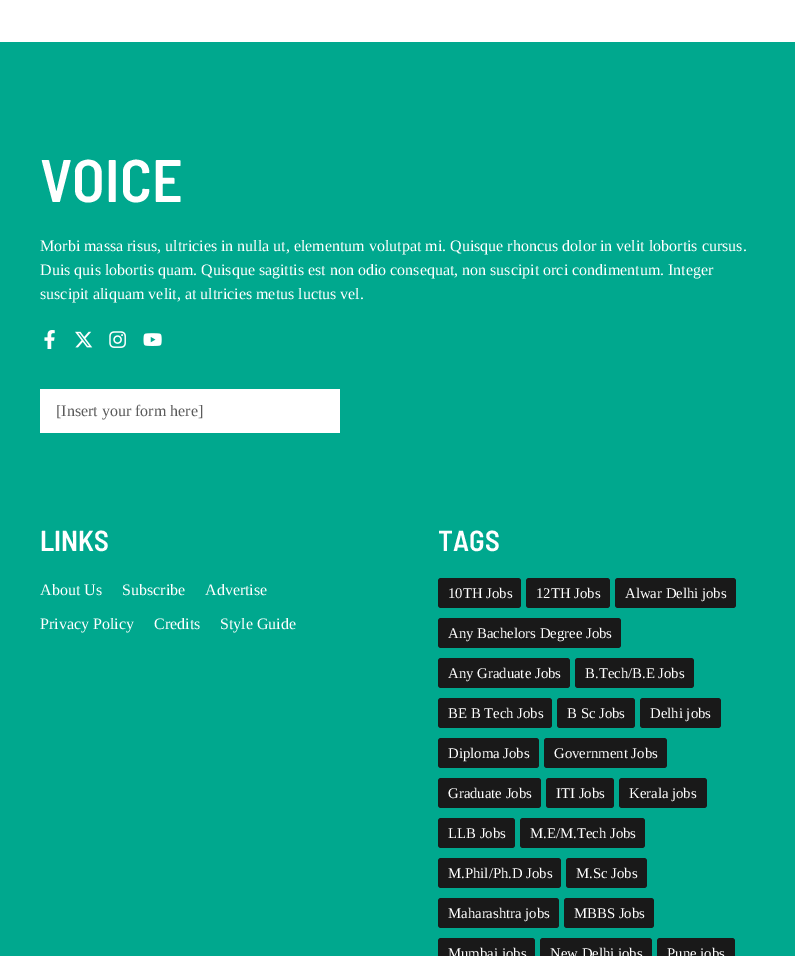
%!PS
<< /PageSize [795 956] >> setpagedevice
/roundrect { 5 dict begin { /r /h /w /y /x } { exch def } forall
  x r add y moveto x w add y 2 copy h add r arct x w add y h add x 1 index r arct
  x y h add x y r arct x y 2 copy exch w add exch r arct closepath end } def
/picture { 5 dict begin { /h /w /y /x /name } { exch def } forall
  gsave x y translate w h scale
  w h 8 [w 0 0 h 0 0] name (r) file false 3 colorimage grestore end } def
0 956 translate 1 -1 scale
4 setmiterlimit
1 setgray
0 0 795 956 rectfill
0 0.659 0.557 setrgbcolor
0 42 795 914 rectfill
/BarlowSemiCondensed-SemiBold [60 0 0 -60 0 0] selectfont
1 setgray
40 202 moveto (VOICE) show
/LiberationSerif-Regular [16 0 0 -16 0 0] selectfont
40 251 moveto (Morbi massa risus, ultricies in nulla ut, elementum volutpat mi. Quisque rhoncus dolor in velit lobortis cursus.) show
40 275 moveto (Duis quis lobortis quam. Quisque sagittis est non odio consequat, non suscipit orci condimentum. Integer) show
40 299 moveto (suscipit aliquam velit, at ultricies metus luctus vel.) show
(img1.rgb) 44 330 11 19 picture
(img2.rgb) 75 331 18 17 picture
(img3.rgb) 109 331 17 17 picture
(img4.rgb) 143 333 19 13 picture
40 389 300 44 rectfill
0.357 setgray
56 416 moveto ([Insert your form here]) show
/BarlowSemiCondensed-SemiBold [29 0 0 -29 0 0] selectfont
1 setgray
40 551 moveto (LINKS) show
/LiberationSerif-Regular [16 0 0 -16 0 0] selectfont
40 595 moveto (About Us) show
122 595 moveto (Subscribe) show
205 595 moveto (Advertise) show
40 629 moveto (Privacy Policy) show
154 629 moveto (Credits) show
220 629 moveto (Style Guide) show
/BarlowSemiCondensed-SemiBold [29 0 0 -29 0 0] selectfont
438 551 moveto (TAGS) show
0.098 setgray
438 578 83 30 3 roundrect fill
/LiberationSerif-Regular [14.75 0 0 -14.75 0 0] selectfont
1 setgray
448 598 moveto (10TH Jobs) show
0.098 setgray
526 578 84 30 3 roundrect fill
1 setgray
536 598 moveto (12TH Jobs) show
0.098 setgray
615 578 121 30 3 roundrect fill
1 setgray
625 598 moveto (Alwar Delhi jobs) show
0.098 setgray
438 618 183 30 3 roundrect fill
1 setgray
448 638 moveto (Any Bachelors Degree Jobs) show
0.098 setgray
438 658 132 30 3 roundrect fill
1 setgray
448 678 moveto (Any Graduate Jobs) show
0.098 setgray
575 658 119 30 3 roundrect fill
1 setgray
585 678 moveto (B.Tech/B.E Jobs) show
0.098 setgray
438 698 114 30 3 roundrect fill
1 setgray
448 718 moveto (BE B Tech Jobs) show
0.098 setgray
557 698 78 30 3 roundrect fill
1 setgray
567 718 moveto (B Sc Jobs) show
0.098 setgray
640 698 81 30 3 roundrect fill
1 setgray
650 718 moveto (Delhi jobs) show
0.098 setgray
438 738 101 30 3 roundrect fill
1 setgray
448 758 moveto (Diploma Jobs) show
0.098 setgray
544 738 123 30 3 roundrect fill
1 setgray
554 758 moveto (Government Jobs) show
0.098 setgray
438 778 103 30 3 roundrect fill
1 setgray
448 798 moveto (Graduate Jobs) show
0.098 setgray
546 778 68 30 3 roundrect fill
1 setgray
556 798 moveto (ITI Jobs) show
0.098 setgray
619 778 88 30 3 roundrect fill
1 setgray
629 798 moveto (Kerala jobs) show
0.098 setgray
438 818 77 30 3 roundrect fill
1 setgray
448 838 moveto (LLB Jobs) show
0.098 setgray
520 818 125 30 3 roundrect fill
1 setgray
530 838 moveto (M.E/M.Tech Jobs) show
0.098 setgray
438 858 123 30 3 roundrect fill
1 setgray
448 878 moveto (M.Phil/Ph.D Jobs) show
0.098 setgray
566 858 81 30 3 roundrect fill
1 setgray
576 878 moveto (M.Sc Jobs) show
0.098 setgray
438 898 121 30 3 roundrect fill
1 setgray
448 918 moveto (Maharashtra jobs) show
0.098 setgray
564 898 90 30 3 roundrect fill
1 setgray
574 918 moveto (MBBS Jobs) show
0.098 setgray
438 938 97 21 3 roundrect fill
1 setgray
448 958 moveto (Mumbai jobs) show
0.098 setgray
540 938 112 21 3 roundrect fill
1 setgray
550 958 moveto (New Delhi jobs) show
0.098 setgray
657 938 78 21 3 roundrect fill
1 setgray
667 958 moveto (Pune jobs) show
showpage
